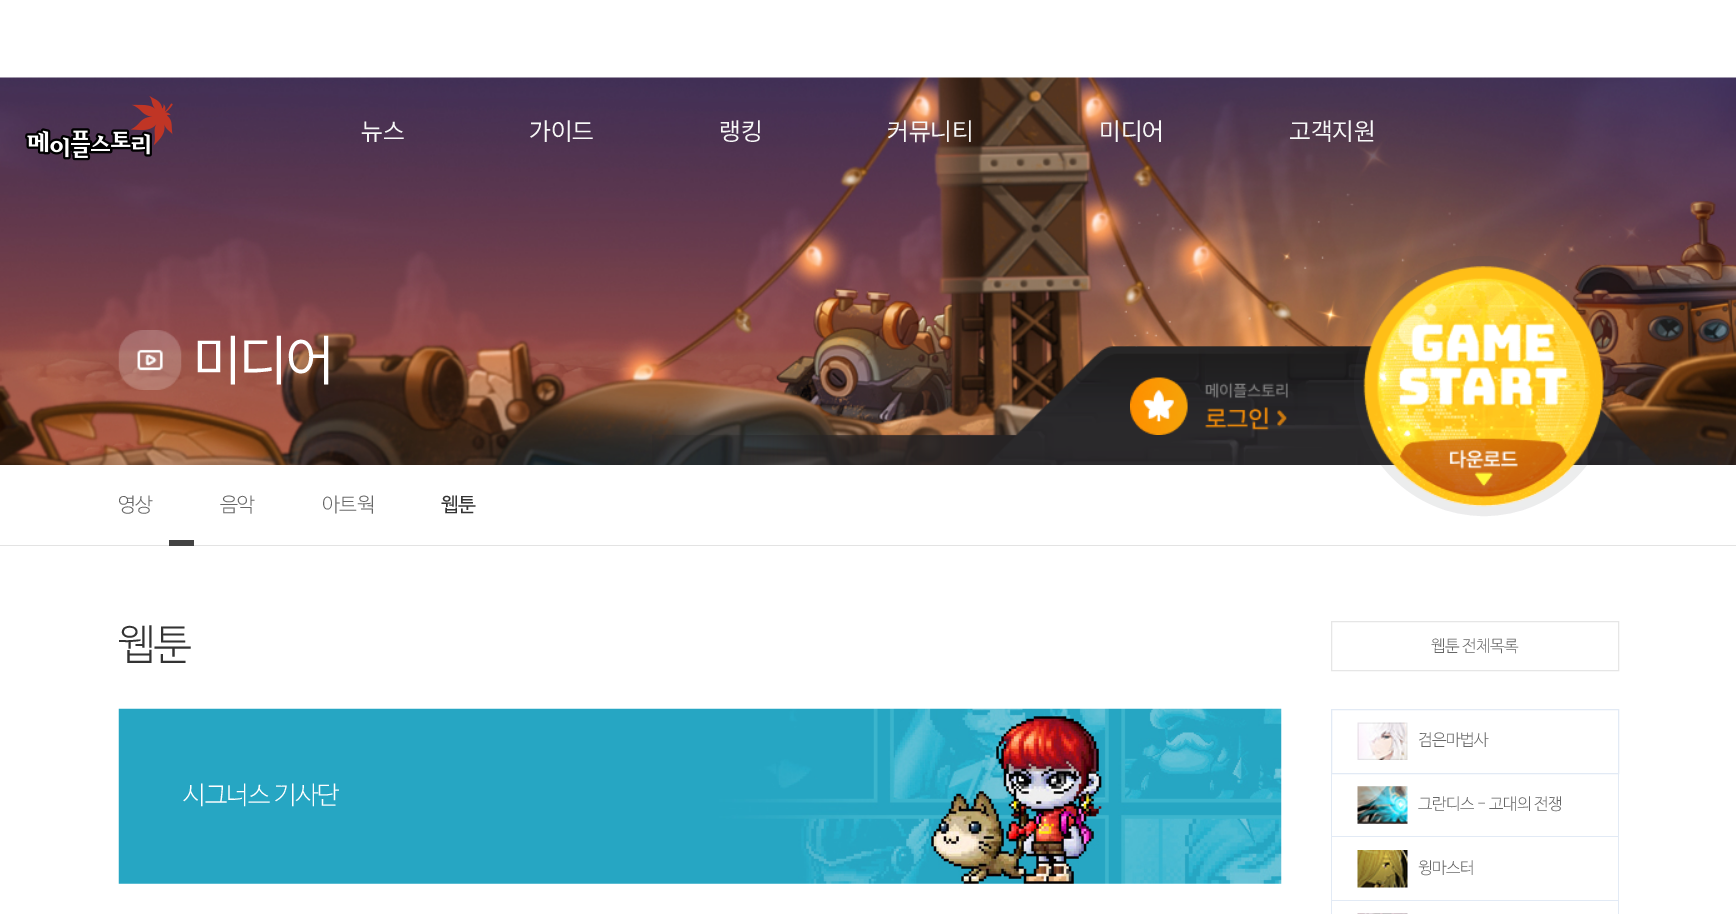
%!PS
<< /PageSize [1736 914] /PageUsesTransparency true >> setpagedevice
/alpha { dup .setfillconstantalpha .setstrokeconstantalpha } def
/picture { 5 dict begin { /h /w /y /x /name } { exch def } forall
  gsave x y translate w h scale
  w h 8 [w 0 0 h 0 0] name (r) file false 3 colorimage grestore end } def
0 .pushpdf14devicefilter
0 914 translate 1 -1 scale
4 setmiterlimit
1 setgray
0 0 1736 914 rectfill
(img2.rgb) 0 77 1736 388 picture
(img1.rgb) 25 96 148 65 picture
/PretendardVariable-Regular [25 0 0 -25 0 0] selectfont
0.969 setgray
361 140 moveto (뉴스) show
529 140 moveto (가이드) show
719 140 moveto (랭킹) show
887 140 moveto (커뮤니티) show
1099 140 moveto (미디어) show
1289 140 moveto (고객지원) show
(img3.rgb) 118 330 64 60 picture
/PretendardVariable-Regular [56 0 0 -56 0 0] selectfont
1 setgray
193 380 moveto -2 0 (미디어) ashow
(img6.rgb) 652 345 1004 120 picture
0.1 alpha
0.275 0.278 0.302 setrgbcolor
10 setlinewidth
newpath 1484 386 125 0 360 arc closepath stroke
1 alpha
(img4.rgb) 1363 266 241 241 picture
(img5.rgb) 1400 438 168 60 picture
(img7.rgb) 1130 377 158 58 picture
0.89 setgray
0 545 1736 1 rectfill
/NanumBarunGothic-Light [20 0 0 -20 0 0] selectfont
0.4 setgray
118 511 moveto -0.5 0 (영상) ashow
220 511 moveto -0.5 0 (음악) ashow
322 511 moveto -0.5 0 (아트웍) ashow
/NanumBarunGothic-Regular [20 0 0 -20 0 0] selectfont
0.2 setgray
441 511 moveto -0.5 0 (웹툰) ashow
0.263 setgray
169 540 25 6 rectfill
/NanumBarunGothic-Light [42 0 0 -42 0 0] selectfont
0.2 setgray
118 658 moveto -1 0 (웹툰) ashow
(img8.rgb) 118 708 1164 176 picture
/NanumBarunGothic-Light [25 0 0 -25 0 0] selectfont
1 setgray
183 803 moveto -0.75 0 (시그너스 기사단) ashow
0.902 setgray
1 setlinewidth
1331.5 621.5 287 49 rectstroke
/NanumBarunGothic-Light [16.25 0 0 -16.25 0 0] selectfont
0.4 setgray
1431 651 moveto -0.5 0 (웹툰 전체목록) ashow
0.886 0.918 0.961 setrgbcolor
1331.5 709.5 287 64 rectstroke
(img9.rgb) 1357 722 51 38 picture
0.4 setgray
1418 745 moveto -0.5 0 (검은마법사) ashow
0.886 0.918 0.961 setrgbcolor
1618 774 1 140 rectfill
1331 836 288 1 rectfill
1331 774 1 64 rectfill
(img10.rgb) 1357 786 51 38 picture
0.4 setgray
1418 809 moveto -0.5 0 (그란디스 - 고대의 전쟁) ashow
0.886 0.918 0.961 setrgbcolor
1331 900 288 1 rectfill
1331 838 1 76 rectfill
(img11.rgb) 1357 850 51 38 picture
0.4 setgray
1418 873 moveto -0.5 0 (윙마스터) ashow
(img12.rgb) 1357 913 51 1 picture
.poppdf14devicefilter showpage
